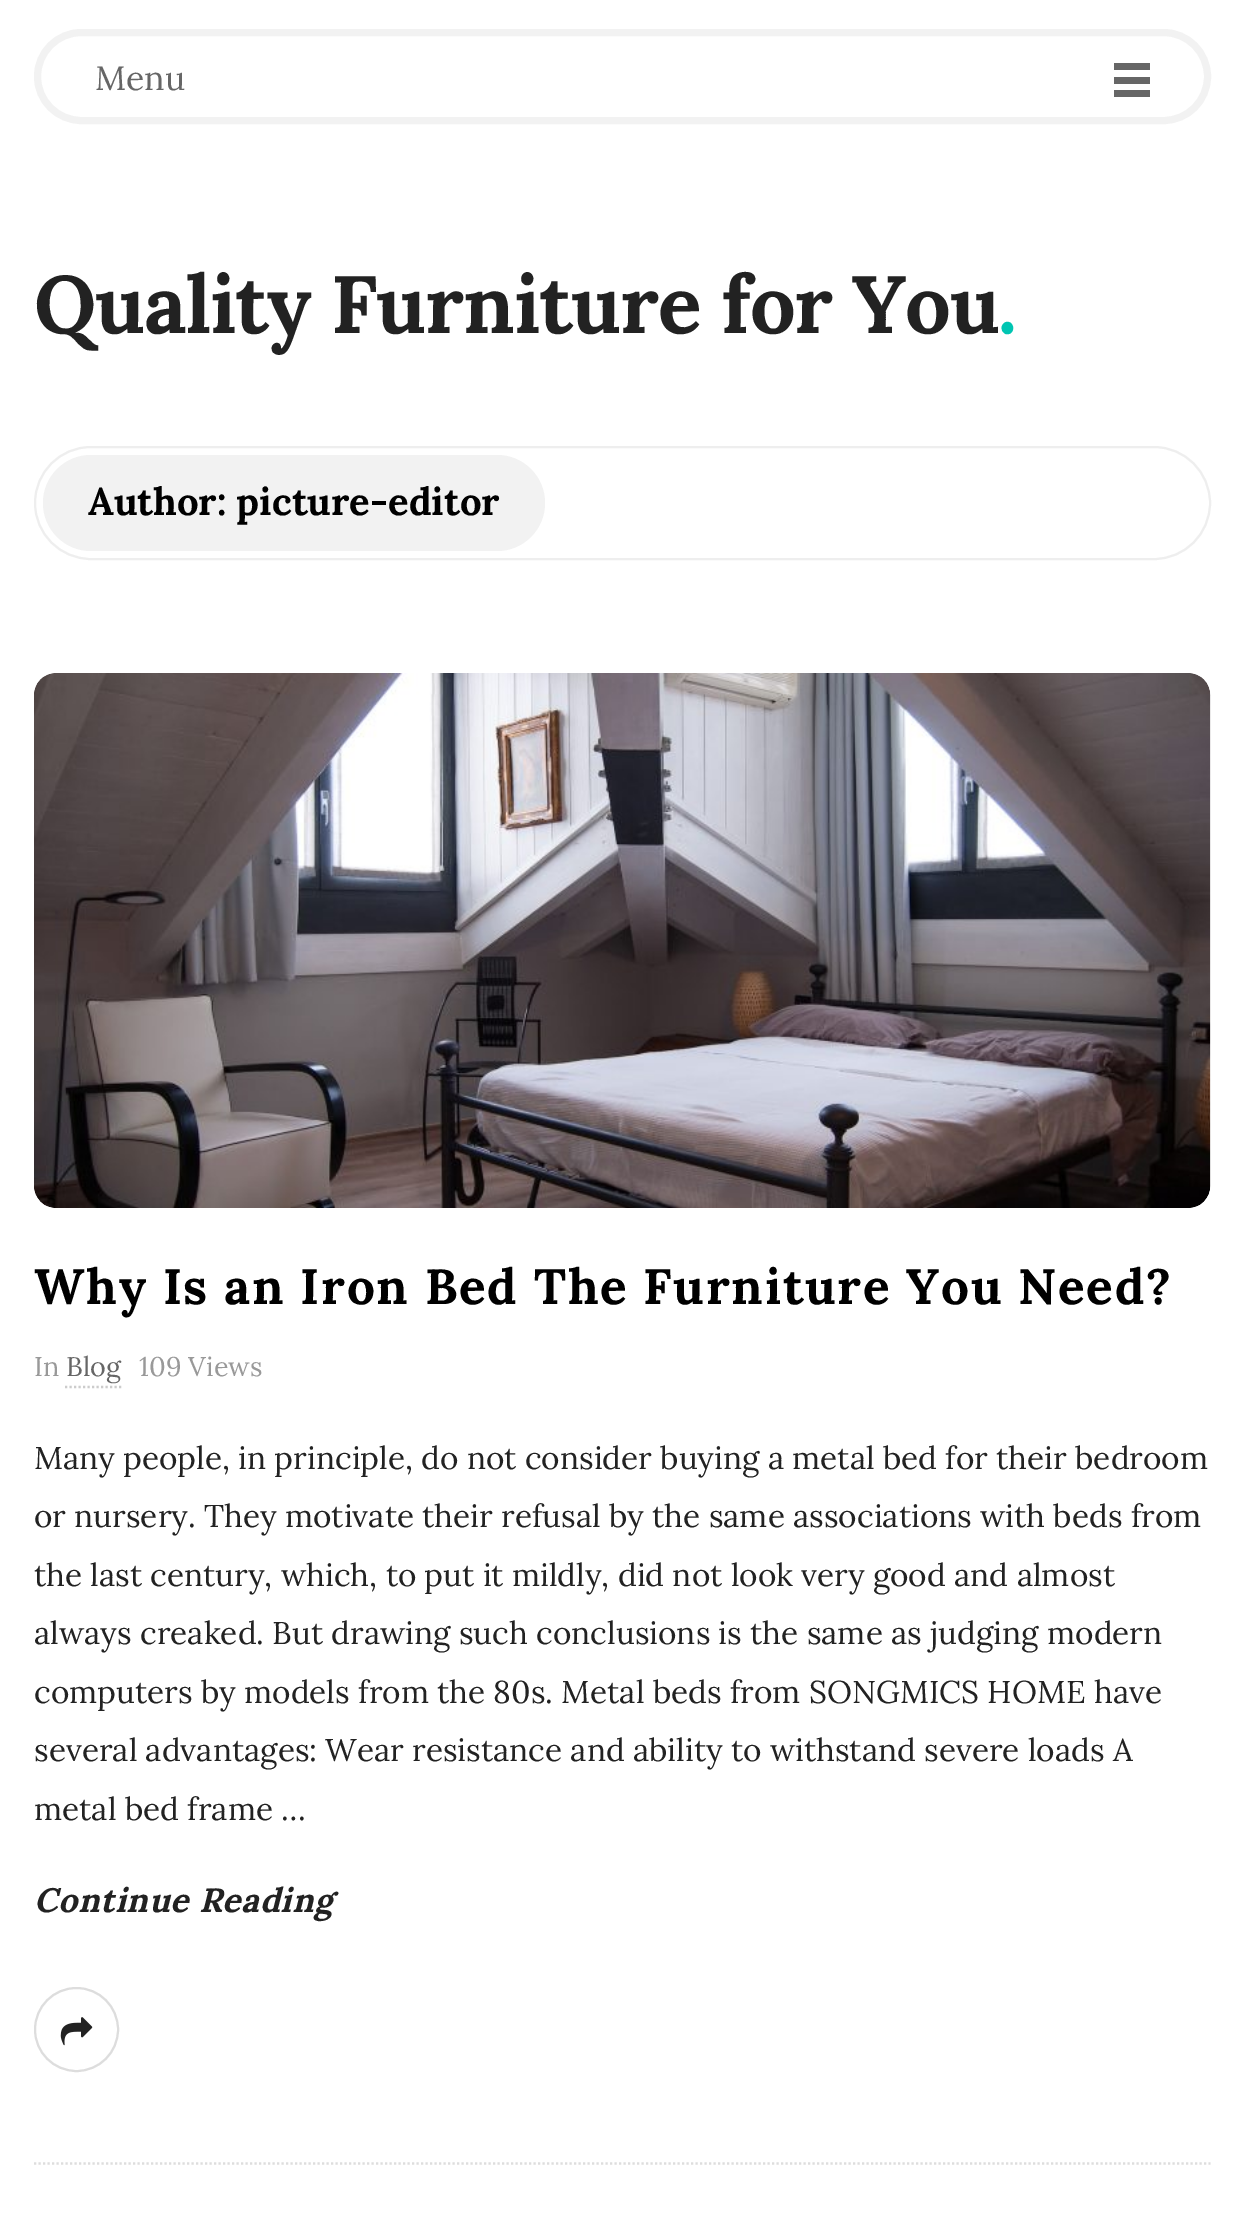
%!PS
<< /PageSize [1244 2238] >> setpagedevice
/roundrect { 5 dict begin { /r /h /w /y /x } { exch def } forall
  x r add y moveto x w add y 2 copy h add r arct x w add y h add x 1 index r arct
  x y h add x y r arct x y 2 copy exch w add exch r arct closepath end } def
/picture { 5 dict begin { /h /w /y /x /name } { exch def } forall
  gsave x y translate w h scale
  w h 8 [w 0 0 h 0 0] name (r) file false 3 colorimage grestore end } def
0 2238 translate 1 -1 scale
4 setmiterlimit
1 setgray
0 0 1244 2238 rectfill
0.949 setgray
7 setlinewidth
37.5 32.5 1170 88 44 roundrect stroke
/Lora-Regular [33.75 0 0 -33.75 0 0] selectfont
0.4 setgray
95 90 moveto (Menu) show
1114 63 36 7 rectfill
1114 77 36 7 rectfill
1114 90 36 7 rectfill
/Lora-Bold [81 0 0 -81 0 0] selectfont
0.133 setgray
34 333 moveto -1.1 0 (Quality Furniture for You) ashow
0 0.773 0.698 setrgbcolor
998 333 moveto -1.1 0 (.) ashow
0.933 setgray
2 setlinewidth
35 447 1175 112 56 roundrect stroke
0.949 setgray
43 455 502 96 48 roundrect fill
/Lora-Bold [38.25 0 0 -38.25 0 0] selectfont
0 setgray
88 515 moveto (Author: picture-editor) show
0.867 setgray
2.2 setlinewidth
[2.25 2.25] 0 setdash
newpath 34 2163.5 moveto 1210.5 2163.5 lineto stroke
(img1.rgb) 34 673 1177 535 picture
/Lora-Bold [49.5 0 0 -49.5 0 0] selectfont
0 setgray
34 1304 moveto 1.8 0 (Why Is an Iron Bed The Furniture You Need?) ashow
/Lora-Regular [27 0 0 -27 0 0] selectfont
0.6 setgray
34 1376 moveto (In) show
0.4 setgray
66 1376 moveto (Blog) show
0.8 setgray
newpath 65 1387 moveto 121.5 1387 lineto stroke
0.6 setgray
139 1376 moveto (109 Views) show
/Lora-Regular [31.5 0 0 -31.5 0 0] selectfont
0.133 setgray
34 1469 moveto (Many people, in principle, do not consider buying a metal bed for their bedroom) show
34 1527 moveto (or nursery. They motivate their refusal by the same associations with beds from) show
34 1586 moveto (the last century, which, to put it mildly, did not look very good and almost) show
34 1644 moveto (always creaked. But drawing such conclusions is the same as judging modern) show
34 1703 moveto (computers by models from the 80s. Metal beds from SONGMICS HOME have) show
34 1761 moveto (several advantages: Wear resistance and ability to withstand severe loads A) show
34 1820 moveto (metal bed frame …) show
/Lora-BoldItalic [33.75 0 0 -33.75 0 0] selectfont
34 1912 moveto 0.7 0 (Continue Reading) ashow
0.867 setgray
2 setlinewidth
[] 0 setdash
newpath 76.5 2029.5 41.5 0 360 arc closepath stroke
(img2.rgb) 60 2017 33 29 picture
showpage
